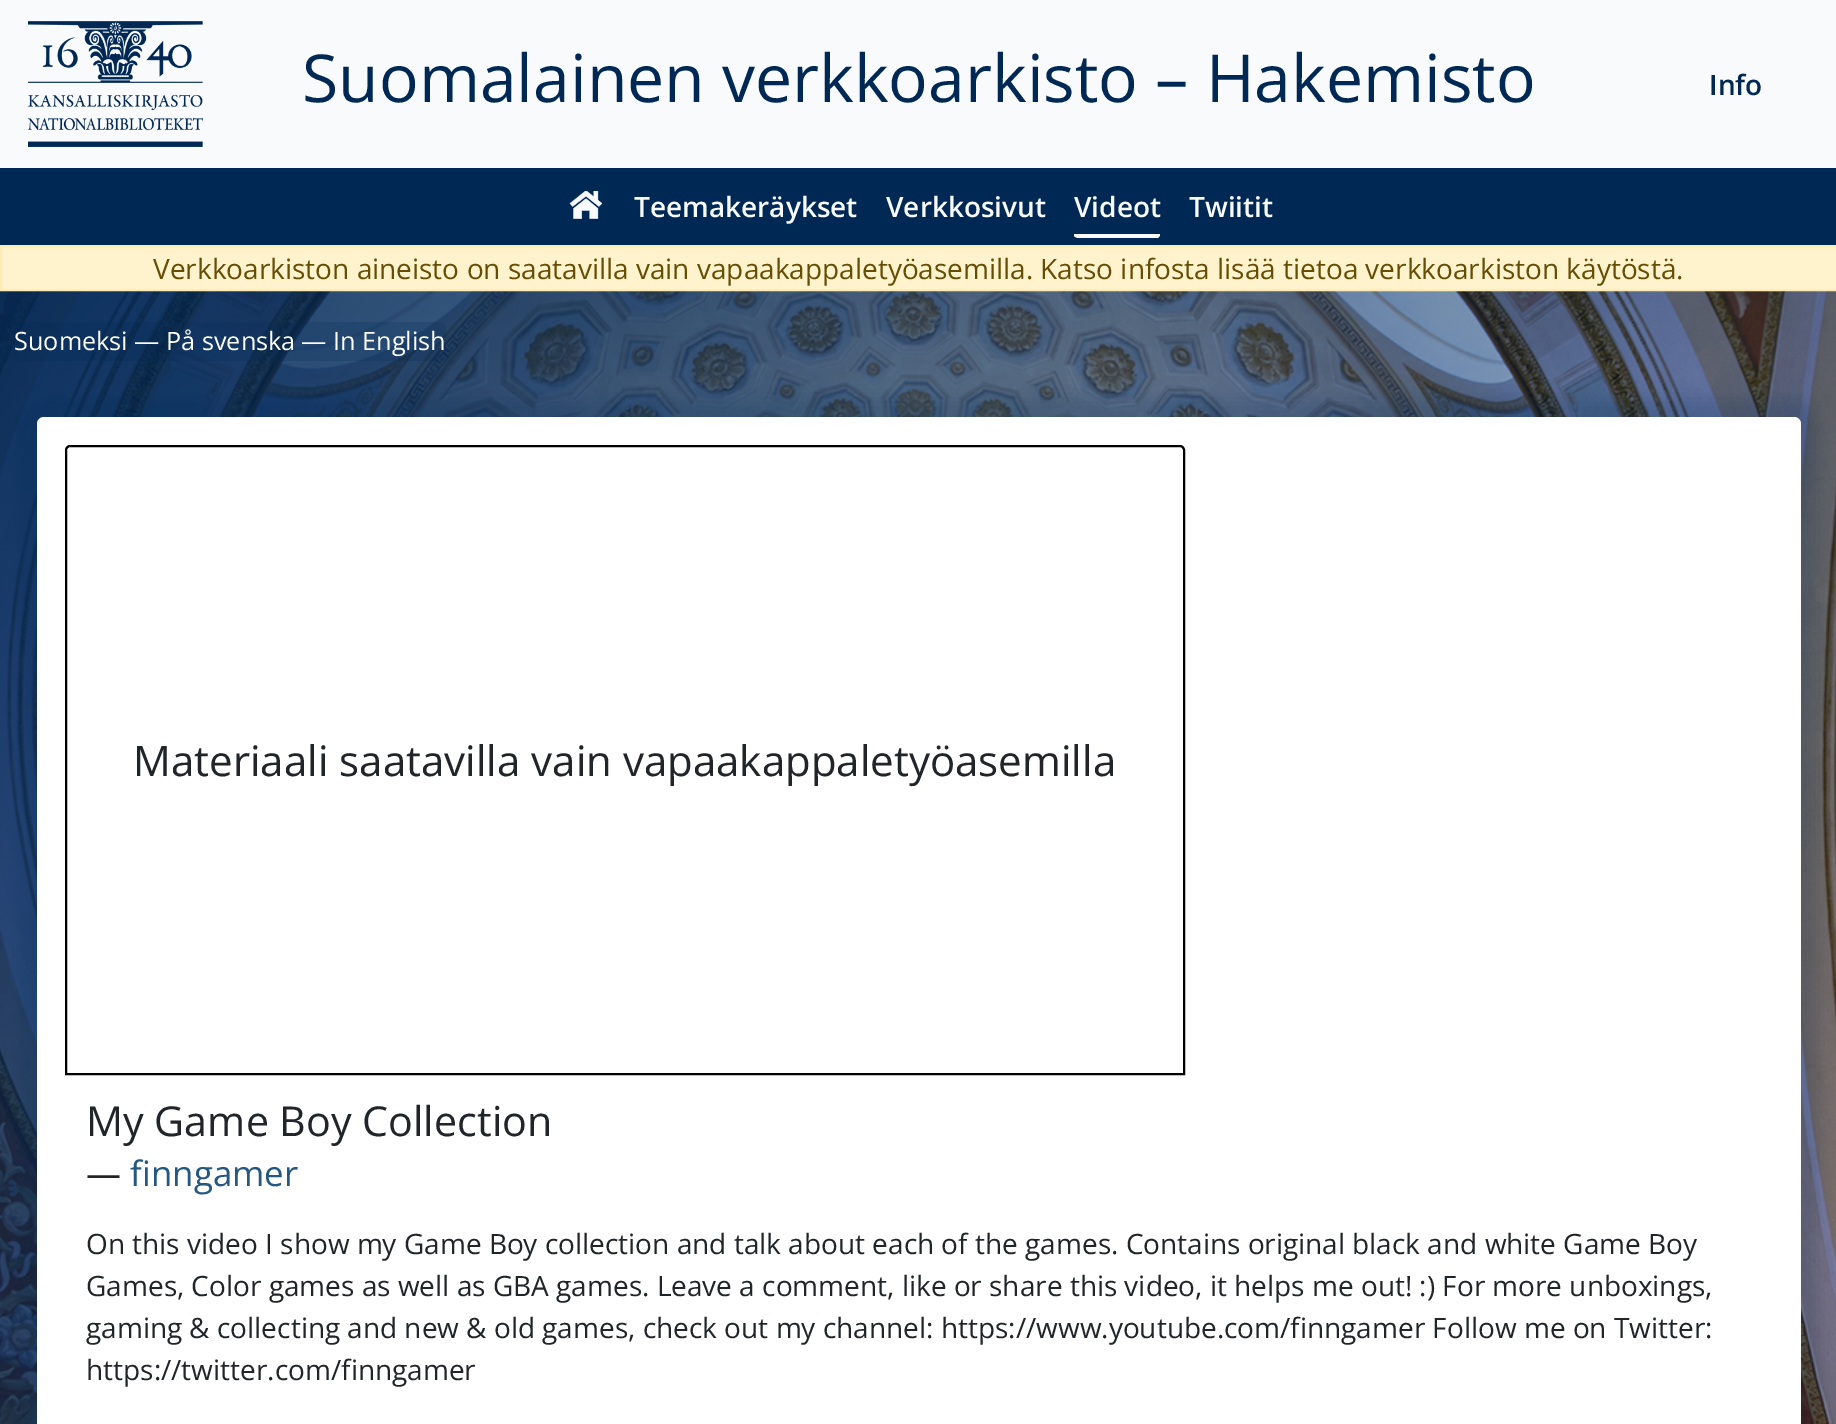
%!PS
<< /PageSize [1836 1424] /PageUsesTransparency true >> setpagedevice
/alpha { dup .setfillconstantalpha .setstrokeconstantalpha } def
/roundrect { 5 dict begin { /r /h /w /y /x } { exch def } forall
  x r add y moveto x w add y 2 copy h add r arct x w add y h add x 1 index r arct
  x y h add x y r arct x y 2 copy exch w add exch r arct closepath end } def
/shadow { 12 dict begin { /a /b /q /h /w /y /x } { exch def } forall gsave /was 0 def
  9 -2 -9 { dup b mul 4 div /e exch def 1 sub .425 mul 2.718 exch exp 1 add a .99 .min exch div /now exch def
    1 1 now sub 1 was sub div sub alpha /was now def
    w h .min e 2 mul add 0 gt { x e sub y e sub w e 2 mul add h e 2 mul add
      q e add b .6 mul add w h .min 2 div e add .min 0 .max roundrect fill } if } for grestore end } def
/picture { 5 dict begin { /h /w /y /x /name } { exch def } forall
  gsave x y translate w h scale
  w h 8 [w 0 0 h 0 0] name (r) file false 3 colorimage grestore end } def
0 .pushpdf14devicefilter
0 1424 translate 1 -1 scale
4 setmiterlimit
1 setgray
0 0 1836 1424 rectfill
(img1.rgb) 0 291 1836 1133 picture
0.973 0.98 0.988 setrgbcolor
0 0 1836 168 rectfill
(img2.rgb) 28 21 175 126 picture
/OpenSans-Regular [66.1 0 0 -66.1 0 0] selectfont
0 0.157 0.333 setrgbcolor
302 102 moveto (Suomalainen verkkoarkisto – Hakemisto) show
0 168 1836 77 rectfill
/OpenSans-SemiBold [28 0 0 -28 0 0] selectfont
1709 95 moveto (Info) show
(img3.rgb) 569 191 34 28 picture
0.973 0.98 0.988 setrgbcolor
634 217 moveto (Teemakeräykset) show
886 217 moveto (Verkkosivut) show
newpath 1157 238 moveto 1159 238 1160 236 1160 234 curveto 1074 234 lineto 1074 236 lineto 1075 237 1077 238 1078 238 curveto closepath fill
1074 217 moveto (Videot) show
1189 217 moveto (Twiitit) show
1 0.953 0.804 setrgbcolor
newpath 1 246 moveto 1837 246 lineto 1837 290 lineto 1 290 lineto closepath gsave fill grestore
1 0.925 0.71 setrgbcolor
2 setlinewidth
stroke
/OpenSans-Regular [28 0 0 -28 0 0] selectfont
0.4 0.302 0.012 setrgbcolor
153 279 moveto (Verkkoarkiston aineisto on saatavilla vain vapaakappaletyöasemilla. Katso infosta lisää tietoa verkkoarkiston käytöstä.) show
0.2 alpha
0 0.157 0.333 setrgbcolor
14 322 432 39 7 roundrect fill
/OpenSans-Regular [25.25 0 0 -25.25 0 0] selectfont
1 alpha
1 setgray
14 350 moveto (Suomeksi) show
0.973 0.98 0.988 setrgbcolor
134 350 moveto (―) show
1 setgray
166 350 moveto (På svenska) show
0.973 0.98 0.988 setrgbcolor
301 350 moveto (―) show
1 setgray
333 350 moveto (In English) show
0 0.157 0.333 setrgbcolor
19 399 1799 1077 25 9 0.2 shadow
1 setgray
37 417 1764 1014 7 roundrect fill
0 setgray
newpath 70 446 moveto 1180 446 lineto 1182 446 1184 448 1184 450 curveto 1184 1074 lineto 66 1074 lineto 66 450 lineto 66 448 68 446 70 446 curveto closepath stroke
/OpenSans-Regular [42 0 0 -42 0 0] selectfont
0.129 0.145 0.161 setrgbcolor
133 776 moveto (Materiaali saatavilla vain vapaakappaletyöasemilla) show
/OpenSans-Regular [41.25 0 0 -41.25 0 0] selectfont
86 1136 moveto (My Game Boy Collection) show
/OpenSans-Medium [35 0 0 -35 0 0] selectfont
86 1186 moveto (―) show
/OpenSans-Regular [35 0 0 -35 0 0] selectfont
0.145 0.341 0.514 setrgbcolor
130 1186 moveto (finngamer) show
/OpenSans-Regular [28 0 0 -28 0 0] selectfont
0.129 0.145 0.161 setrgbcolor
86 1254 moveto (On this video I show my Game Boy collection and talk about each of the games. Contains original black and white Game Boy) show
86 1296 moveto (Games, Color games as well as GBA games. Leave a comment, like or share this video, it helps me out! :\) For more unboxings,) show
86 1338 moveto (gaming & collecting and new & old games, check out my channel: https://www.youtube.com/finngamer Follow me on Twitter:) show
86 1380 moveto (https://twitter.com/finngamer) show
.poppdf14devicefilter showpage
